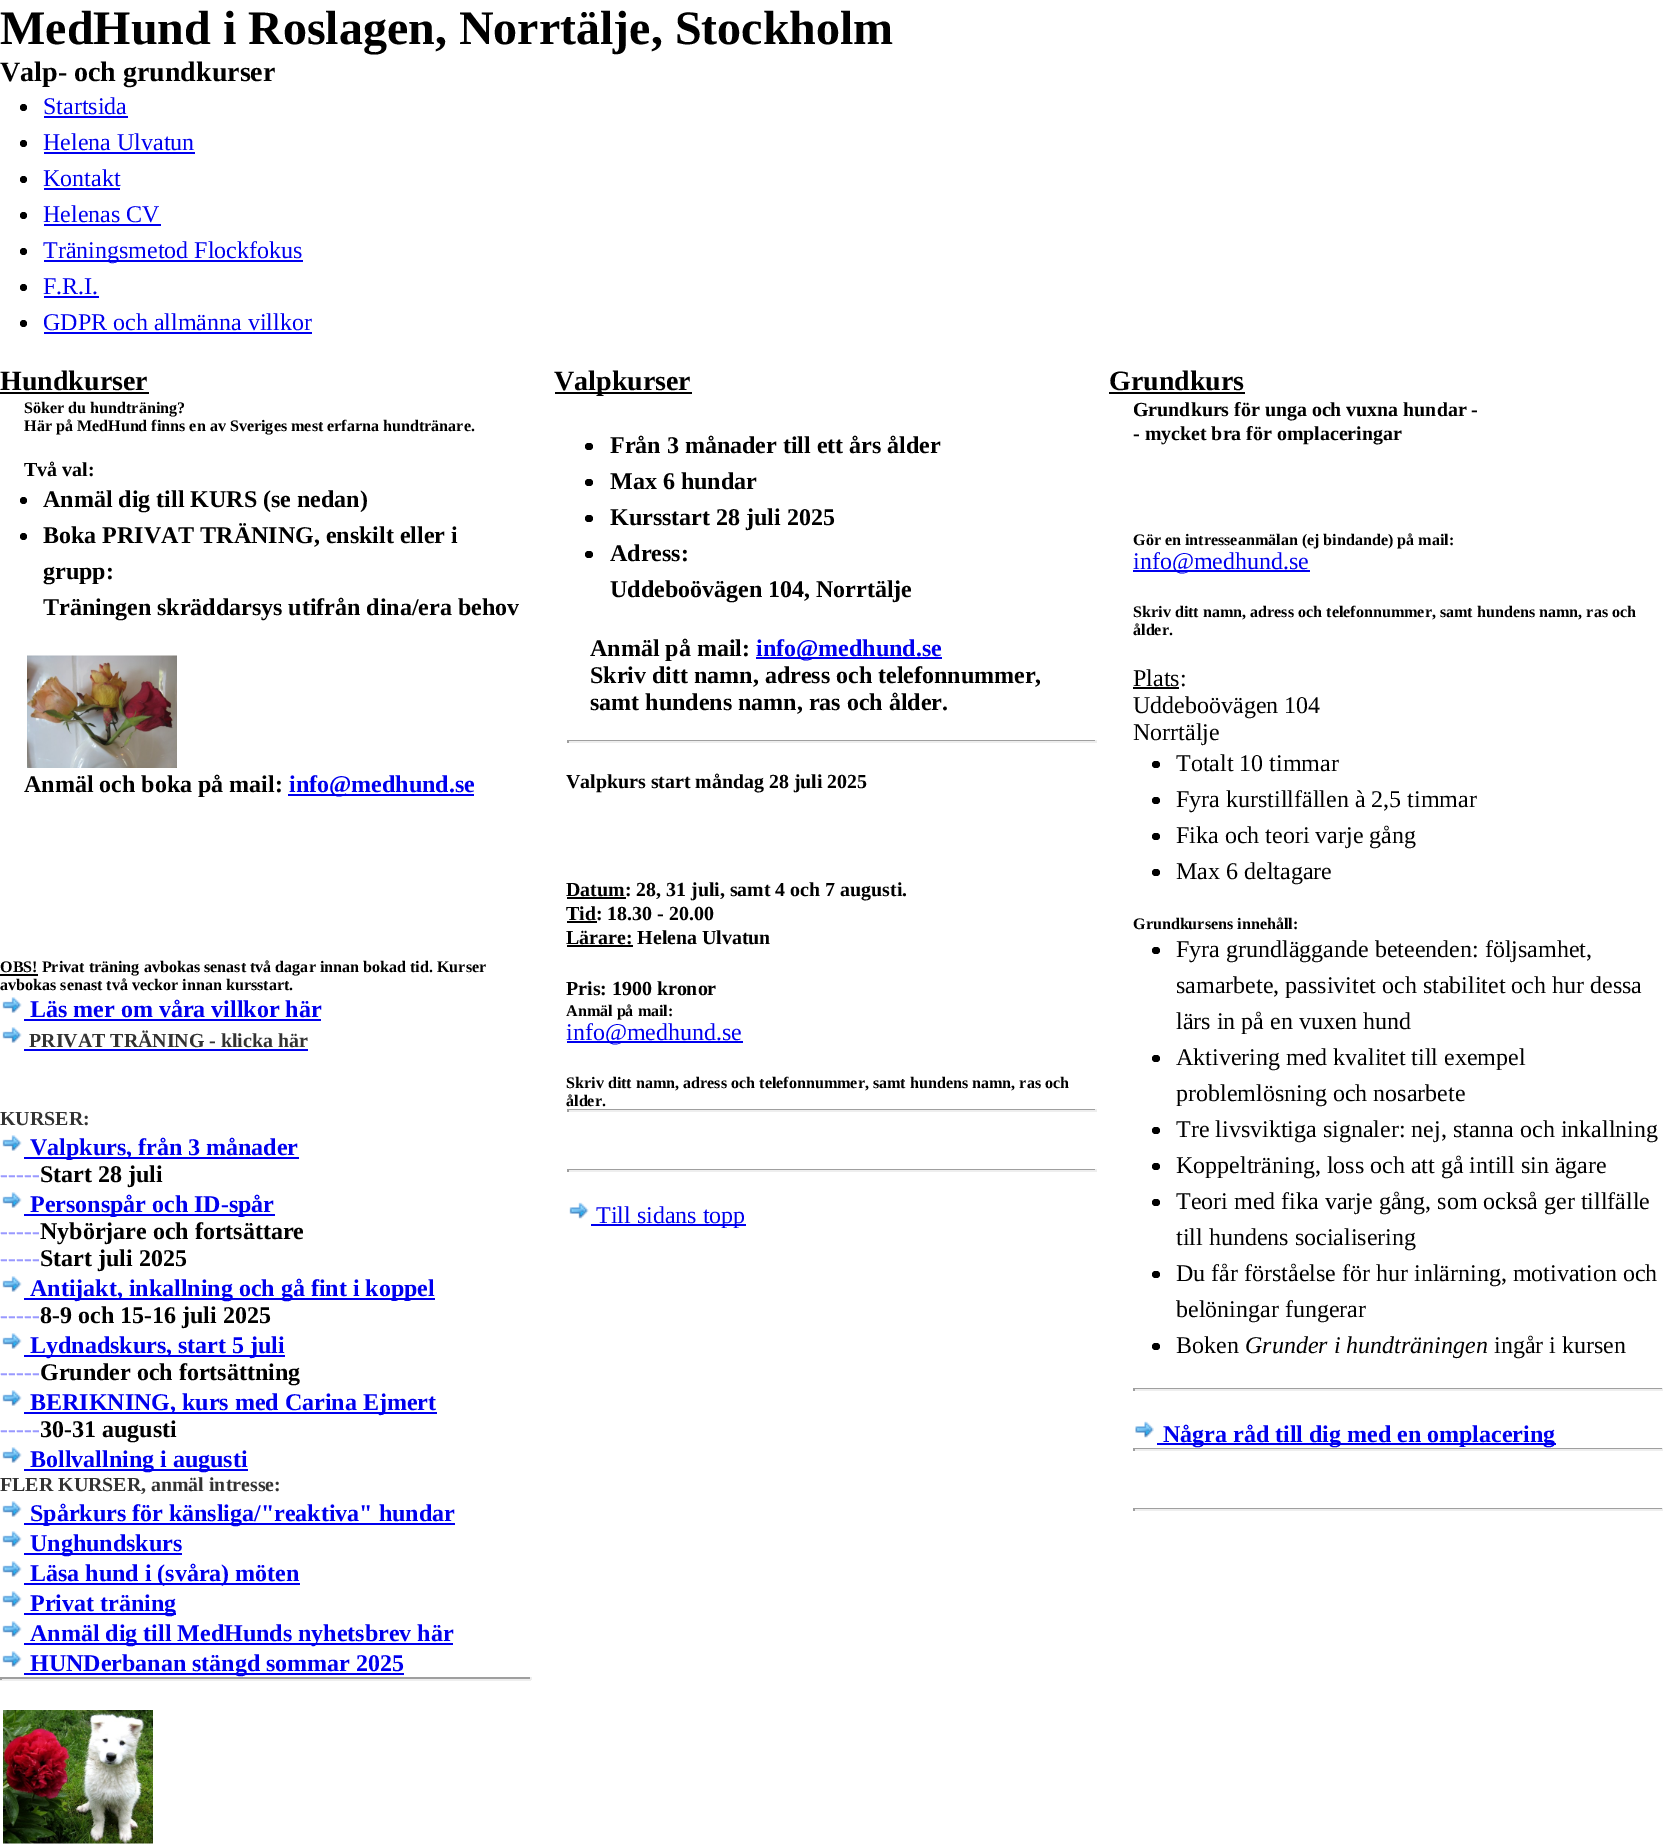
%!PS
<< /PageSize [1663 1846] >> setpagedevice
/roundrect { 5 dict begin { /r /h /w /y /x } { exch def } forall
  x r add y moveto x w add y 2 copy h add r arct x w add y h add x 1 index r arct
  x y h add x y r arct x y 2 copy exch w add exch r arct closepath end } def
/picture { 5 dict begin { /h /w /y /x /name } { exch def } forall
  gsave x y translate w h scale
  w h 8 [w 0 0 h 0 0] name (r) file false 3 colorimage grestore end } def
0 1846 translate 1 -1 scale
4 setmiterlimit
1 setgray
0 0 1663 1846 rectfill
/LiberationSerif-Bold [48 0 0 -48 0 0] selectfont
0 setgray
0 44 moveto (MedHund i Roslagen, Norrtälje, Stockholm) show
/LiberationSerif-Bold [28 0 0 -28 0 0] selectfont
0 81 moveto (Valp- och grundkurser) show
newpath 23.5 107.5 3.5 0 360 arc closepath fill
/LiberationSerif-Regular [24 0 0 -24 0 0] selectfont
0 0 0.933 setrgbcolor
43 114 moveto (Startsida) show
44 116 84 2 rectfill
0 setgray
newpath 23.5 143.5 3.5 0 360 arc closepath fill
0 0 0.933 setrgbcolor
43 150 moveto (Helena Ulvatun) show
44 152 151 2 rectfill
0 setgray
newpath 23.5 179.5 3.5 0 360 arc closepath fill
0 0 0.933 setrgbcolor
43 186 moveto (Kontakt) show
44 188 76 2 rectfill
0 setgray
newpath 23.5 215.5 3.5 0 360 arc closepath fill
0 0 0.933 setrgbcolor
43 222 moveto (Helenas CV) show
44 224 117 2 rectfill
0 setgray
newpath 23.5 251.5 3.5 0 360 arc closepath fill
0 0 0.933 setrgbcolor
44 260 259 2 rectfill
43 258 moveto (Träningsmetod Flockfokus) show
0 setgray
newpath 23.5 287.5 3.5 0 360 arc closepath fill
0 0 0.933 setrgbcolor
43 294 moveto (F.R.I.) show
44 296 55 2 rectfill
0 setgray
newpath 23.5 323.5 3.5 0 360 arc closepath fill
0 0 0.933 setrgbcolor
43 330 moveto (GDPR och allmänna villkor) show
44 332 268 2 rectfill
/LiberationSerif-Bold [28 0 0 -28 0 0] selectfont
0 setgray
0 390 moveto (Hundkurser) show
0 392 149 2 rectfill
/LiberationSerif-Bold [16.1 0 0 -16.1 0 0] selectfont
24 413 moveto (Söker du hundträning?) show
24 431 moveto (Här på MedHund finns en av Sveriges mest erfarna hundtränare.) show
/LiberationSerif-Bold [19.9 0 0 -19.9 0 0] selectfont
24 476 moveto (Två val:) show
newpath 23.5 500.5 3.5 0 360 arc closepath fill
/LiberationSerif-Bold [24 0 0 -24 0 0] selectfont
43 507 moveto (Anmäl dig till KURS \(se nedan\)) show
newpath 23.5 536.5 3.5 0 360 arc closepath fill
43 543 moveto (Boka PRIVAT TRÄNING, enskilt eller i) show
43 579 moveto (grupp:) show
43 615 moveto (Träningen skräddarsys utifrån dina/era behov) show
(img1.rgb) 27 655 150 113 picture
24 792 moveto (Anmäl och boka på mail:) show
0 0 0.933 setrgbcolor
288 794 186 2 rectfill
289 792 moveto (info@medhund.se) show
0 setgray
0 974 38 2 rectfill
/LiberationSerif-Bold [16.1 0 0 -16.1 0 0] selectfont
0 972 moveto (OBS! Privat träning avbokas senast två dagar innan bokad tid. Kurser) show
0 990 moveto (avbokas senast två veckor innan kursstart.) show
(img2.rgb) 2 997 20 16 picture
/LiberationSerif-Bold [24 0 0 -24 0 0] selectfont
0 0 0.933 setrgbcolor
30 1017 moveto (Läs mer om våra villkor här) show
24 1019 297 2 rectfill
(img2.rgb) 2 1027 20 16 picture
/LiberationSerif-Bold [19.9 0 0 -19.9 0 0] selectfont
0.2 setgray
29 1047 moveto (PRIVAT TRÄNING - klicka här) show
0 0 0.933 setrgbcolor
24 1049 284 2 rectfill
0.2 setgray
0 1125 moveto (KURSER:) show
(img2.rgb) 2 1135 20 16 picture
0 0 0.933 setrgbcolor
24 1157 275 2 rectfill
/LiberationSerif-Bold [24 0 0 -24 0 0] selectfont
30 1155 moveto (Valpkurs, från 3 månader) show
0.6 0.6 1 setrgbcolor
0 1182 moveto (-----) show
0 setgray
40 1182 moveto (Start 28 juli) show
(img2.rgb) 2 1192 20 16 picture
0 0 0.933 setrgbcolor
24 1214 251 2 rectfill
30 1212 moveto (Personspår och ID-spår) show
0.6 0.6 1 setrgbcolor
0 1239 moveto (-----) show
0 setgray
40 1239 moveto (Nybörjare och fortsättare) show
0.6 0.6 1 setrgbcolor
0 1266 moveto (-----) show
0 setgray
40 1266 moveto (Start juli 2025) show
(img2.rgb) 2 1276 20 16 picture
0 0 0.933 setrgbcolor
24 1298 411 2 rectfill
30 1296 moveto (Antijakt, inkallning och gå fint i koppel) show
0.6 0.6 1 setrgbcolor
0 1323 moveto (-----) show
0 setgray
40 1323 moveto (8-9 och 15-16 juli 2025) show
(img2.rgb) 2 1333 20 16 picture
0 0 0.933 setrgbcolor
24 1355 261 2 rectfill
30 1353 moveto (Lydnadskurs, start 5 juli) show
0.6 0.6 1 setrgbcolor
0 1380 moveto (-----) show
0 setgray
40 1380 moveto (Grunder och fortsättning) show
(img2.rgb) 2 1390 20 16 picture
0 0 0.933 setrgbcolor
24 1412 413 2 rectfill
30 1410 moveto (BERIKNING, kurs med Carina Ejmert) show
0.6 0.6 1 setrgbcolor
0 1437 moveto (-----) show
0 setgray
40 1437 moveto (30-31 augusti) show
(img2.rgb) 2 1447 20 16 picture
0 0 0.933 setrgbcolor
24 1469 224 2 rectfill
30 1467 moveto (Bollvallning i augusti) show
/LiberationSerif-Bold [19.9 0 0 -19.9 0 0] selectfont
0.2 setgray
0 1491 moveto (FLER KURSER, anmäl intresse:) show
(img2.rgb) 2 1501 20 16 picture
0 0 0.933 setrgbcolor
24 1523 431 2 rectfill
/LiberationSerif-Bold [24 0 0 -24 0 0] selectfont
30 1521 moveto (Spårkurs för känsliga/"reaktiva" hundar) show
(img2.rgb) 2 1531 20 16 picture
24 1553 158 2 rectfill
30 1551 moveto (Unghundskurs) show
(img2.rgb) 2 1561 20 16 picture
24 1583 276 2 rectfill
30 1581 moveto (Läsa hund i \(svåra\) möten) show
(img2.rgb) 2 1591 20 16 picture
24 1613 152 2 rectfill
30 1611 moveto (Privat träning) show
(img2.rgb) 2 1621 20 16 picture
24 1643 429 2 rectfill
30 1641 moveto (Anmäl dig till MedHunds nyhetsbrev här) show
(img2.rgb) 2 1651 20 16 picture
24 1673 380 2 rectfill
30 1671 moveto (HUNDerbanan stängd sommar 2025) show
0.624 setgray
0 1677 531 2 rectfill
0.933 setgray
530 1677 2 3 rectfill
0 1679 531 2 rectfill
0.624 setgray
0 1677 2 3 rectfill
(img3.rgb) 3 1710 150 134 picture
0 setgray
555 392 137 2 rectfill
/LiberationSerif-Bold [28 0 0 -28 0 0] selectfont
554 390 moveto (Valpkurser) show
585 443 8 7 3.5 roundrect fill
/LiberationSerif-Bold [24 0 0 -24 0 0] selectfont
610 453 moveto (Från 3 månader till ett års ålder) show
585 479 8 7 3.5 roundrect fill
610 489 moveto (Max 6 hundar) show
585 515 8 7 3.5 roundrect fill
610 525 moveto (Kursstart 28 juli 2025) show
585 551 8 7 3.5 roundrect fill
610 561 moveto (Adress:) show
610 597 moveto (Uddeboövägen 104, Norrtälje) show
590 656 moveto (Anmäl på mail:) show
0 0 0.933 setrgbcolor
756 657 186 2 rectfill
756 656 moveto (info@medhund.se) show
0 setgray
590 683 moveto (Skriv ditt namn, adress och telefonnummer,) show
590 710 moveto (samt hundens namn, ras och ålder.) show
0.624 setgray
567 740 530 1 rectfill
0.933 setgray
1095 740 2 3 rectfill
567 741 530 2 rectfill
0.624 setgray
567 740 2 3 rectfill
/LiberationSerif-Bold [19.9 0 0 -19.9 0 0] selectfont
0 setgray
566 788 moveto (Valpkurs start måndag 28 juli 2025) show
567 897 59 2 rectfill
566 896 moveto (Datum: 28, 31 juli, samt 4 och 7 augusti.) show
566 920 moveto (Tid: 18.30 - 20.00) show
567 921 30 2 rectfill
566 944 moveto (Lärare: Helena Ulvatun) show
567 945 66 2 rectfill
566 995 moveto (Pris: 1900 kronor) show
/LiberationSerif-Bold [16.1 0 0 -16.1 0 0] selectfont
566 1016 moveto (Anmäl på mail:) show
0 0 0.933 setrgbcolor
567 1041 176 2 rectfill
/LiberationSerif-Regular [24 0 0 -24 0 0] selectfont
566 1040 moveto (info@medhund.se) show
/LiberationSerif-Bold [16.1 0 0 -16.1 0 0] selectfont
0 setgray
566 1088 moveto (Skriv ditt namn, adress och telefonnummer, samt hundens namn, ras och) show
566 1106 moveto (ålder.) show
0.624 setgray
567 1109 530 1 rectfill
0.933 setgray
1095 1109 2 3 rectfill
567 1110 530 2 rectfill
0.624 setgray
567 1109 2 3 rectfill
567 1169 530 1 rectfill
0.933 setgray
1095 1169 2 3 rectfill
567 1170 530 2 rectfill
0.624 setgray
567 1169 2 3 rectfill
(img4.rgb) 569 1202 20 17 picture
0 0 0.933 setrgbcolor
591 1224 155 2 rectfill
/LiberationSerif-Regular [24 0 0 -24 0 0] selectfont
596 1223 moveto (Till sidans topp) show
/LiberationSerif-Bold [28 0 0 -28 0 0] selectfont
0 setgray
1109 390 moveto (Grundkurs) show
1109 392 136 2 rectfill
/LiberationSerif-Bold [19.9 0 0 -19.9 0 0] selectfont
1133 416 moveto (Grundkurs för unga och vuxna hundar -) show
1133 440 moveto (- mycket bra för omplaceringar) show
/LiberationSerif-Bold [16.1 0 0 -16.1 0 0] selectfont
1133 545 moveto (Gör en intresseanmälan \(ej bindande\) på mail:) show
0 0 0.933 setrgbcolor
1133 570 177 2 rectfill
/LiberationSerif-Regular [24 0 0 -24 0 0] selectfont
1133 569 moveto (info@medhund.se) show
/LiberationSerif-Bold [16.1 0 0 -16.1 0 0] selectfont
0 setgray
1133 617 moveto (Skriv ditt namn, adress och telefonnummer, samt hundens namn, ras och) show
1133 635 moveto (ålder.) show
/LiberationSerif-Regular [24 0 0 -24 0 0] selectfont
1133 686 moveto (Plats:) show
1133 687 46 2 rectfill
1133 713 moveto (Uddeboövägen 104) show
1133 740 moveto (Norrtälje) show
1152 761 8 7 3.5 roundrect fill
1176 771 moveto (Totalt 10 timmar) show
1152 797 8 7 3.5 roundrect fill
1176 807 moveto (Fyra kurstillfällen à 2,5 timmar) show
1152 833 8 7 3.5 roundrect fill
1176 843 moveto (Fika och teori varje gång) show
1152 869 8 7 3.5 roundrect fill
1176 879 moveto (Max 6 deltagare) show
/LiberationSerif-Bold [16.1 0 0 -16.1 0 0] selectfont
1133 929 moveto (Grundkursens innehåll:) show
1152 947 8 7 3.5 roundrect fill
/LiberationSerif-Regular [24 0 0 -24 0 0] selectfont
1176 957 moveto (Fyra grundläggande beteenden: följsamhet,) show
1176 993 moveto (samarbete, passivitet och stabilitet och hur dessa) show
1176 1029 moveto (lärs in på en vuxen hund) show
1152 1055 8 7 3.5 roundrect fill
1176 1065 moveto (Aktivering med kvalitet till exempel) show
1176 1101 moveto (problemlösning och nosarbete) show
1152 1127 8 7 3.5 roundrect fill
1176 1137 moveto (Tre livsviktiga signaler: nej, stanna och inkallning) show
1152 1163 8 7 3.5 roundrect fill
1176 1173 moveto (Koppelträning, loss och att gå intill sin ägare) show
1152 1199 8 7 3.5 roundrect fill
1176 1209 moveto (Teori med fika varje gång, som också ger tillfälle) show
1176 1245 moveto (till hundens socialisering) show
1152 1271 8 7 3.5 roundrect fill
1176 1281 moveto (Du får förståelse för hur inlärning, motivation och) show
1176 1317 moveto (belöningar fungerar) show
1152 1343 8 7 3.5 roundrect fill
1176 1353 moveto (Boken) show
/LiberationSerif-Italic [24 0 0 -24 0 0] selectfont
1245 1353 moveto (Grunder i hundträningen) show
/LiberationSerif-Regular [24 0 0 -24 0 0] selectfont
1494 1353 moveto (ingår i kursen) show
0.624 setgray
1133 1388 530 1 rectfill
0.933 setgray
1662 1388 1 3 rectfill
1133 1389 530 2 rectfill
0.624 setgray
1133 1388 2 3 rectfill
(img5.rgb) 1135 1421 19 17 picture
0 0 0.933 setrgbcolor
1157 1443 399 2 rectfill
/LiberationSerif-Bold [24 0 0 -24 0 0] selectfont
1163 1442 moveto (Några råd till dig med en omplacering) show
0.624 setgray
1133 1448 530 1 rectfill
0.933 setgray
1662 1448 1 3 rectfill
1133 1449 530 2 rectfill
0.624 setgray
1133 1448 2 3 rectfill
1133 1508 530 1 rectfill
0.933 setgray
1662 1508 1 3 rectfill
1133 1509 530 2 rectfill
0.624 setgray
1133 1508 2 3 rectfill
showpage
